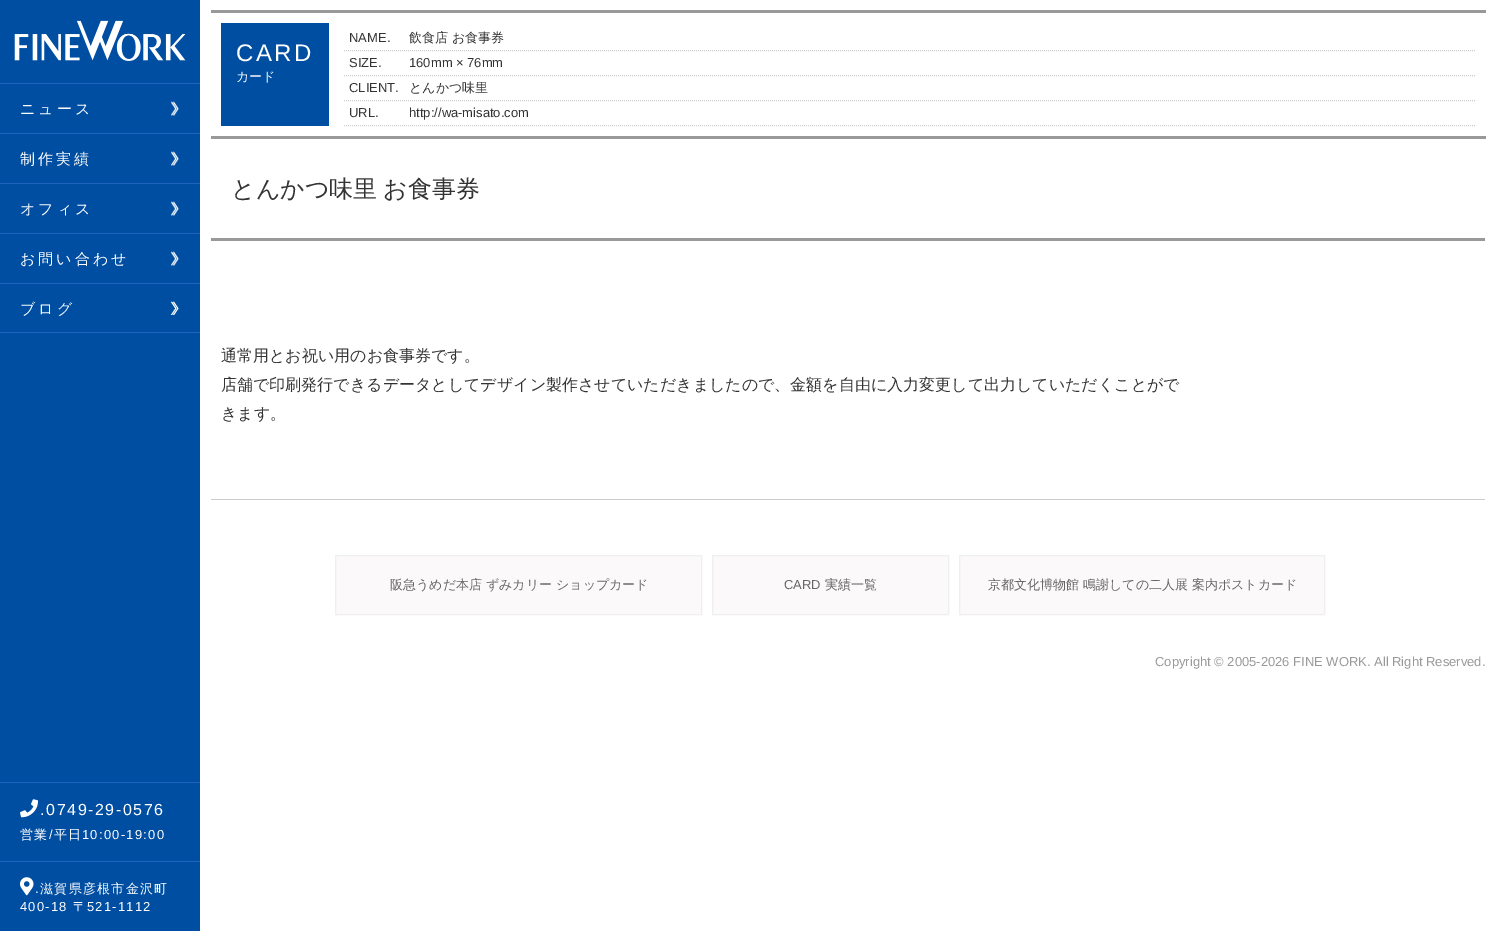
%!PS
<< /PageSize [1495 931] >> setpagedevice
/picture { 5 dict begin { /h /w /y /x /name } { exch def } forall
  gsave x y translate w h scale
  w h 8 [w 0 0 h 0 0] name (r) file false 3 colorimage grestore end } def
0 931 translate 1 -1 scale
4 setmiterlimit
1 setgray
0 0 1495 931 rectfill
0 0.306 0.635 setrgbcolor
0 0 200 83 rectfill
(img1.rgb) 14 20 172 41 picture
0 84 200 847 rectfill
(img2.rgb) 171 101 8 15 picture
0.122 0.388 0.737 setrgbcolor
0 83 200 1 rectfill
/WenQuanYiZenHei-Medium [15 0 0 -15 0 0] selectfont
1 setgray
20 114 moveto 3 0 (ニュース) ashow
(img2.rgb) 171 151 8 15 picture
0.122 0.388 0.737 setrgbcolor
0 133 200 1 rectfill
1 setgray
20 164 moveto 3 0 (制作実績) ashow
(img2.rgb) 171 201 8 15 picture
0.122 0.388 0.737 setrgbcolor
0 183 200 1 rectfill
1 setgray
20 214 moveto 3 0 (オフィス) ashow
(img2.rgb) 171 251 8 15 picture
0.122 0.388 0.737 setrgbcolor
0 233 200 1 rectfill
1 setgray
20 264 moveto 3 0 (お問い合わせ) ashow
(img3.rgb) 171 301 8 14 picture
0.122 0.388 0.737 setrgbcolor
0 283 200 1 rectfill
0 332 200 1 rectfill
1 setgray
20 314 moveto 3 0 (ブログ) ashow
0.122 0.388 0.737 setrgbcolor
0 782 200 1 rectfill
(img4.rgb) 20 799 18 19 picture
/LiberationSans-Regular [16 0 0 -16 0 0] selectfont
1 setgray
40 815 moveto 1.6 0 (.0749-29-0576) ashow
/WenQuanYiZenHei-Medium [13 0 0 -13 0 0] selectfont
20 839 moveto 1.25 0 (営業 平日) ashow
/LiberationSans-Regular [13 0 0 -13 0 0] selectfont
49 839 moveto 1.25 0 (/) ashow
82 839 moveto 1.25 0 (10:00-19:00) ashow
0.122 0.388 0.737 setrgbcolor
0 861 200 1 rectfill
(img5.rgb) 20 877 14 19 picture
1 setgray
35 893 moveto 1.25 0 (.) ashow
/WenQuanYiZenHei-Medium [13 0 0 -13 0 0] selectfont
40 893 moveto 1.25 0 (滋賀県彦根市金沢町) ashow
/LiberationSans-Regular [13 0 0 -13 0 0] selectfont
20 911 moveto 1.25 0 (400-18) ashow
/WenQuanYiZenHei-Medium [13 0 0 -13 0 0] selectfont
73 911 moveto 1.25 0 (〒) ashow
/LiberationSans-Regular [13 0 0 -13 0 0] selectfont
87 911 moveto 1.25 0 (521-1112) ashow
0.6 setgray
211 10 1275 3 rectfill
211 136 1275 3 rectfill
0 0.306 0.635 setrgbcolor
221 23 108 103 rectfill
/LiberationSans-Regular [24 0 0 -24 0 0] selectfont
1 setgray
236 61 moveto 2.5 0 (CARD) ashow
/WenQuanYiZenHei-Medium [13 0 0 -13 0 0] selectfont
236 81 moveto (カード) show
0.8 setgray
[1 1] 0 setdash
newpath 344 50.5 moveto 1476 50.5 lineto stroke
/LiberationSans-Regular [13 0 0 -13 0 0] selectfont
0.2 setgray
349 42 moveto (NAME.) show
/WenQuanYiZenHei-Medium [13 0 0 -13 0 0] selectfont
409 42 moveto (飲食店 お食事券) show
0.8 setgray
newpath 344 75.5 moveto 1476 75.5 lineto stroke
/LiberationSans-Regular [13 0 0 -13 0 0] selectfont
0.2 setgray
349 67 moveto (SIZE.) show
409 67 moveto (160mm × 76mm) show
0.8 setgray
newpath 344 100.5 moveto 1476 100.5 lineto stroke
0.2 setgray
349 92 moveto (CLIENT.) show
/WenQuanYiZenHei-Medium [13 0 0 -13 0 0] selectfont
409 92 moveto (とんかつ味里) show
0.8 setgray
newpath 344 125.5 moveto 1476 125.5 lineto stroke
/LiberationSans-Regular [13 0 0 -13 0 0] selectfont
0.2 setgray
349 117 moveto (URL.) show
409 117 moveto (http://wa-misato.com) show
0.6 setgray
211 238 1274 3 rectfill
/WenQuanYiZenHei-Medium [24 0 0 -24 0 0] selectfont
0.2 setgray
231 197 moveto -1 0 32 (とんかつ味里 お食事券) widthshow
0.8 setgray
211 499 1274 1 rectfill
/WenQuanYiZenHei-Medium [16 0 0 -16 0 0] selectfont
0.2 setgray
221 361 moveto (通常用とお祝い用のお食事券です。) show
221 390 moveto (店舗で印刷発行できるデータとしてデザイン製作させていただきましたので、金額を自由に入力変更して出力していただくことがで) show
221 419 moveto (きます。) show
0.984 0.976 0.976 setrgbcolor
newpath 335.5 555.5 moveto 701.5 555.5 lineto 701.5 614.5 lineto 335.5 614.5 lineto closepath gsave fill grestore
0.937 0.937 0.933 setrgbcolor
[] 0 setdash
stroke
/WenQuanYiZenHei-Medium [13 0 0 -13 0 0] selectfont
0.4 setgray
390 589 moveto (阪急うめだ本店 ずみカリー ショップカード) show
0.984 0.976 0.976 setrgbcolor
newpath 712.5 555.5 moveto 948.5 555.5 lineto 948.5 614.5 lineto 712.5 614.5 lineto closepath gsave fill grestore
0.937 0.937 0.933 setrgbcolor
stroke
/LiberationSans-Regular [13 0 0 -13 0 0] selectfont
0.4 setgray
784 589 moveto (CARD) show
/WenQuanYiZenHei-Medium [13 0 0 -13 0 0] selectfont
825 589 moveto (実績一覧) show
0.984 0.976 0.976 setrgbcolor
newpath 959.5 555.5 moveto 1324.5 555.5 lineto 1324.5 614.5 lineto 959.5 614.5 lineto closepath gsave fill grestore
0.937 0.937 0.933 setrgbcolor
stroke
0.4 setgray
988 589 moveto (京都文化博物館 鳴謝しての二人展 案内ポストカード) show
/LiberationSans-Regular [13 0 0 -13 0 0] selectfont
0.6 setgray
1155 666 moveto (Copyright © 2005-2026 FINE WORK. All Right Reserved.) show
showpage
